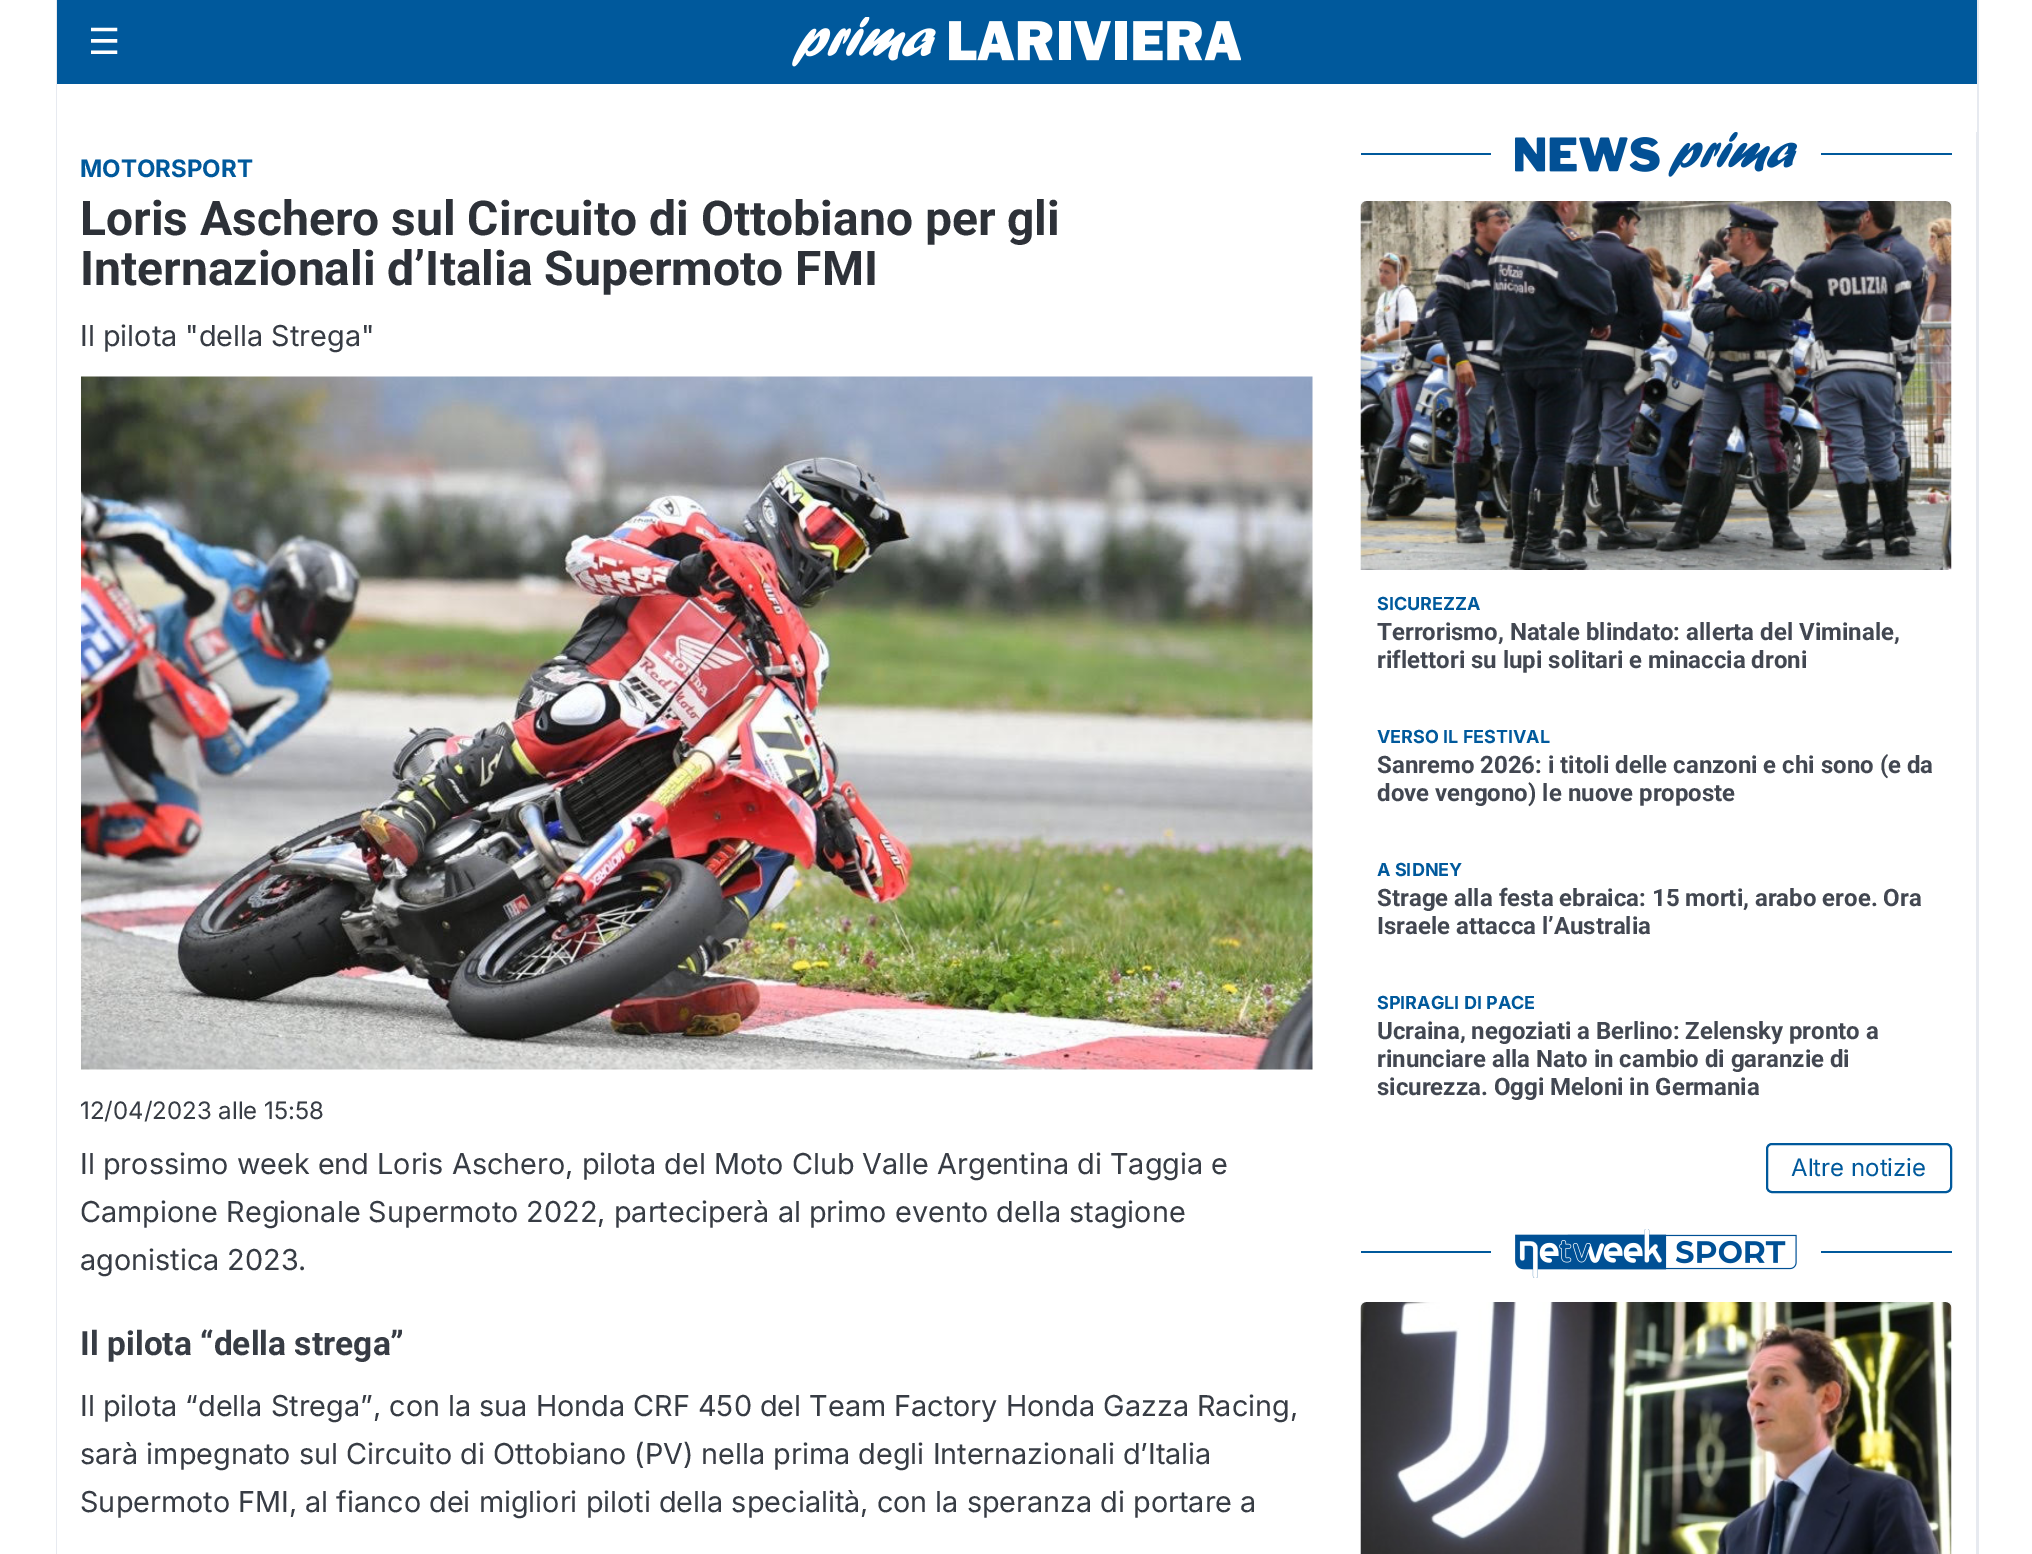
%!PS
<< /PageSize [2032 1554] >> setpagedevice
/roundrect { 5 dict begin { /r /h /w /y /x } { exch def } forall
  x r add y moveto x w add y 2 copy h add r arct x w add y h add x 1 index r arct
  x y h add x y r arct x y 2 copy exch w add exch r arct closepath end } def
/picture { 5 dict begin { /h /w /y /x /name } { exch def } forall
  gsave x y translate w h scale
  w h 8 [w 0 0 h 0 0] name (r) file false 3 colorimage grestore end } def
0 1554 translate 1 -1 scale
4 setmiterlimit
1 setgray
0 0 2032 1554 rectfill
0.906 0.918 0.941 setrgbcolor
1977 0 2 1554 rectfill
56 0 1 1554 rectfill
0 0.349 0.612 setrgbcolor
57 0 1920 84 rectfill
/DejaVuSans-Regular [36 0 0 -36 0 0] selectfont
1 setgray
88 54 moveto (☰) show
(img1.rgb) 792 17 449 50 picture
/Inter-Bold [24 0 0 -24 0 0] selectfont
0 0.349 0.612 setrgbcolor
80 177 moveto (MOTORSPORT) show
/Roboto-Bold [48 0 0 -48 0 0] selectfont
0.176 0.192 0.22 setrgbcolor
80 235 moveto (Loris Aschero sul Circuito di Ottobiano per gli) show
80 285 moveto (Internazionali d’Italia Supermoto FMI) show
/Inter-Regular [28.8 0 0 -28.8 0 0] selectfont
0.216 0.235 0.267 setrgbcolor
80 346 moveto (Il pilota "della Strega") show
(img2.rgb) 81 376 1232 694 picture
/Inter-Regular [24 0 0 -24 0 0] selectfont
80 1119 moveto (12/04/2023 alle 15:58) show
/Inter-Regular [28.8 0 0 -28.8 0 0] selectfont
80 1174 moveto (Il prossimo week end Loris Aschero, pilota del Moto Club Valle Argentina di Taggia e) show
80 1222 moveto (Campione Regionale Supermoto 2022, parteciperà al primo evento della stagione) show
80 1270 moveto (agonistica 2023.) show
/Roboto-Bold [33.5 0 0 -33.5 0 0] selectfont
80 1355 moveto (Il pilota “della strega”) show
/Inter-Regular [28.8 0 0 -28.8 0 0] selectfont
80 1416 moveto (Il pilota “della Strega”, con la sua Honda CRF 450 del Team Factory Honda Gazza Racing,) show
80 1464 moveto (sarà impegnato sul Circuito di Ottobiano \(PV\) nella prima degli Internazionali d’Italia) show
80 1512 moveto (Supermoto FMI, al fianco dei migliori piloti della specialità, con la speranza di portare a) show
0.906 0.918 0.941 setrgbcolor
1976 132 1 1422 rectfill
0 0.349 0.612 setrgbcolor
1361 153 591 2 rectfill
1 setgray
1491 153 330 2 rectfill
(img3.rgb) 1515 132 282 45 picture
(img4.rgb) 1360 201 592 369 picture
/Inter-Bold [18 0 0 -18 0 0] selectfont
0 0.349 0.612 setrgbcolor
1377 610 moveto (SICUREZZA) show
/Roboto-Bold [24 0 0 -24 0 0] selectfont
0.259 0.278 0.318 setrgbcolor
1377 640 moveto (Terrorismo, Natale blindato: allerta del Viminale,) show
1377 668 moveto (riflettori su lupi solitari e minaccia droni) show
/Inter-Bold [18 0 0 -18 0 0] selectfont
0 0.349 0.612 setrgbcolor
1377 743 moveto (VERSO IL FESTIVAL) show
/Roboto-Bold [24 0 0 -24 0 0] selectfont
0.259 0.278 0.318 setrgbcolor
1377 773 moveto (Sanremo 2026: i titoli delle canzoni e chi sono \(e da) show
1377 801 moveto (dove vengono\) le nuove proposte) show
/Inter-Bold [18 0 0 -18 0 0] selectfont
0 0.349 0.612 setrgbcolor
1377 876 moveto (A SIDNEY) show
/Roboto-Bold [24 0 0 -24 0 0] selectfont
0.259 0.278 0.318 setrgbcolor
1377 906 moveto (Strage alla festa ebraica: 15 morti, arabo eroe. Ora) show
1377 934 moveto (Israele attacca l’Australia) show
/Inter-Bold [18 0 0 -18 0 0] selectfont
0 0.349 0.612 setrgbcolor
1377 1009 moveto (SPIRAGLI DI PACE) show
/Roboto-Bold [24 0 0 -24 0 0] selectfont
0.259 0.278 0.318 setrgbcolor
1377 1039 moveto (Ucraina, negoziati a Berlino: Zelensky pronto a) show
1377 1067 moveto (rinunciare alla Nato in cambio di garanzie di) show
1377 1095 moveto (sicurezza. Oggi Meloni in Germania) show
0 0.349 0.612 setrgbcolor
2 setlinewidth
1767 1144 184 48 5 roundrect stroke
/Inter-Regular [24 0 0 -24 0 0] selectfont
1791 1176 moveto (Altre notizie) show
1361 1251 591 2 rectfill
1 setgray
1491 1251 330 2 rectfill
(img5.rgb) 1515 1229 282 49 picture
(img6.rgb) 1360 1302 592 252 picture
showpage
